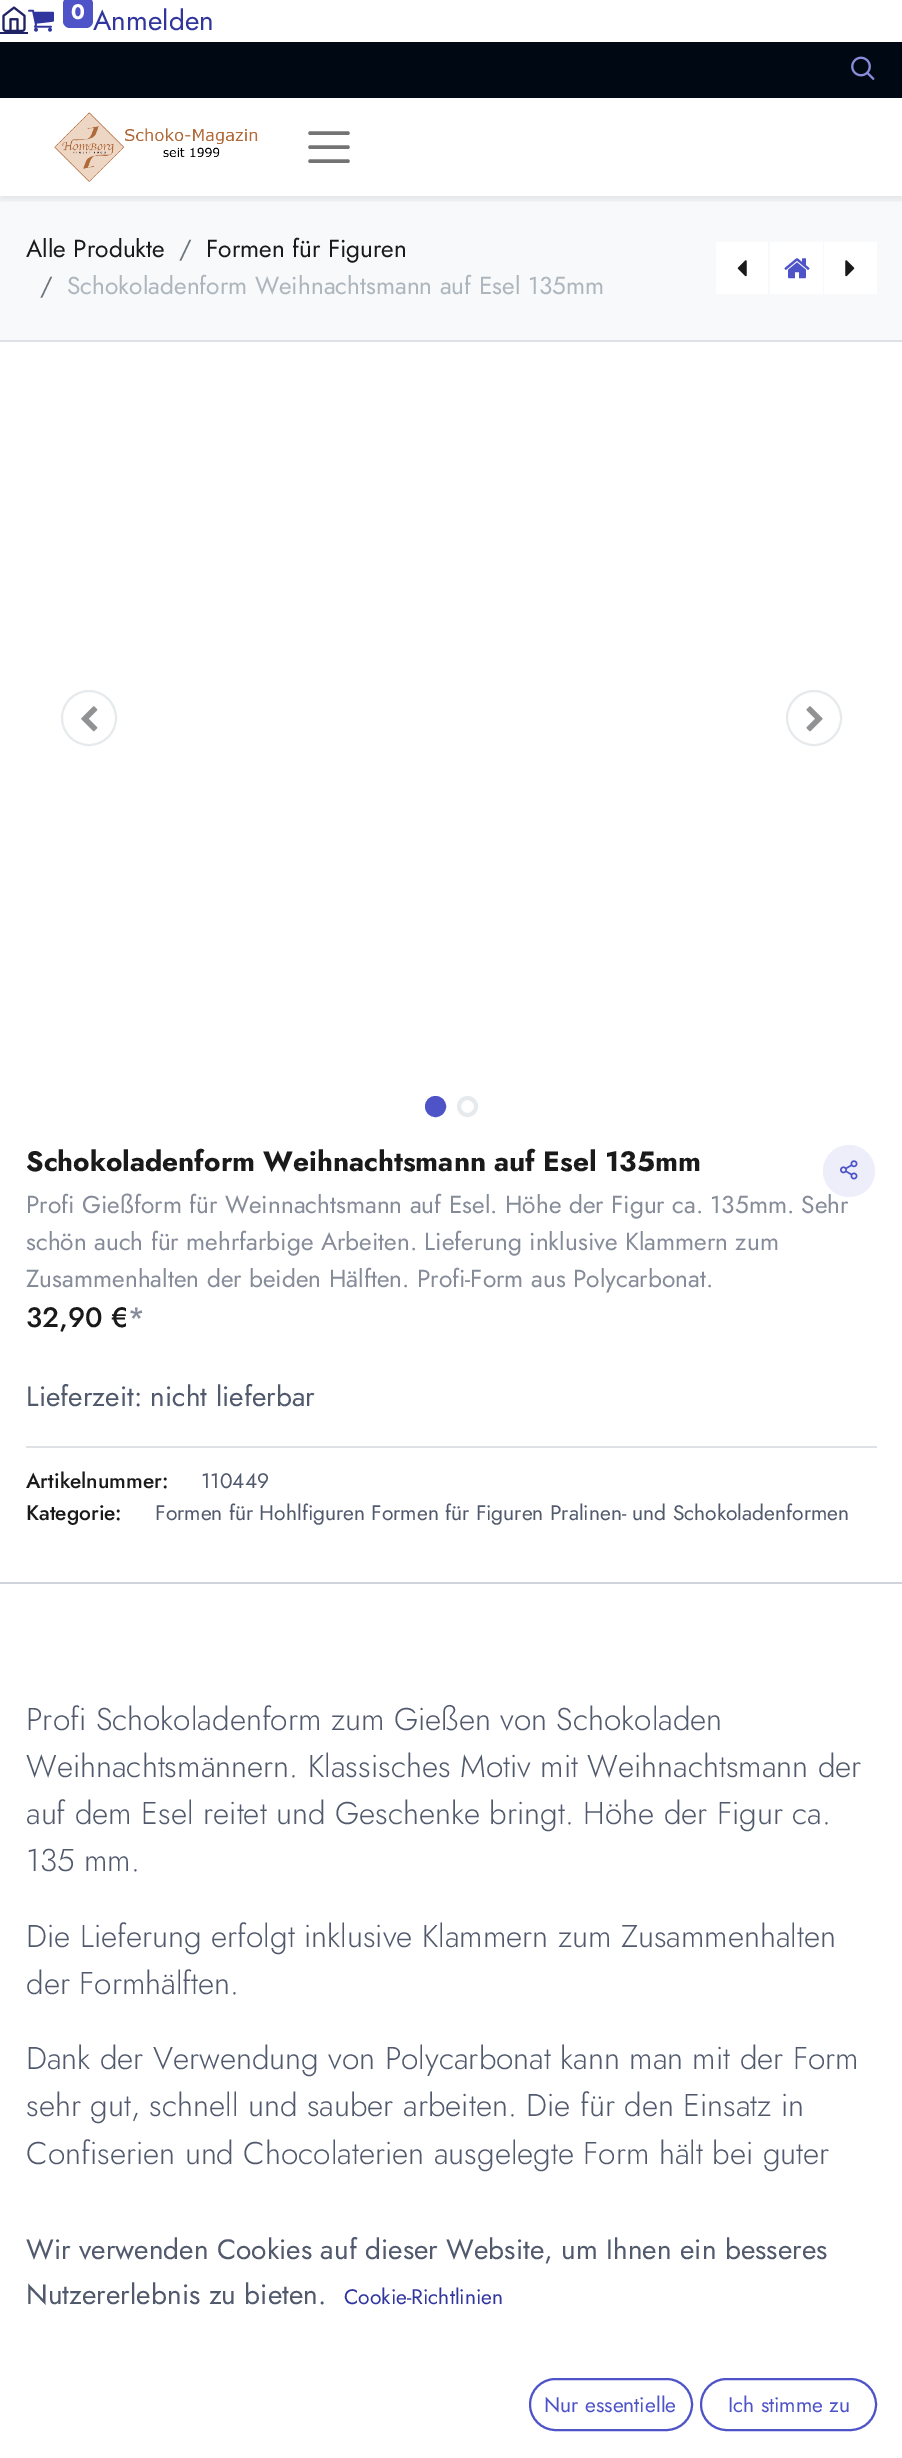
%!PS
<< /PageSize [902 2458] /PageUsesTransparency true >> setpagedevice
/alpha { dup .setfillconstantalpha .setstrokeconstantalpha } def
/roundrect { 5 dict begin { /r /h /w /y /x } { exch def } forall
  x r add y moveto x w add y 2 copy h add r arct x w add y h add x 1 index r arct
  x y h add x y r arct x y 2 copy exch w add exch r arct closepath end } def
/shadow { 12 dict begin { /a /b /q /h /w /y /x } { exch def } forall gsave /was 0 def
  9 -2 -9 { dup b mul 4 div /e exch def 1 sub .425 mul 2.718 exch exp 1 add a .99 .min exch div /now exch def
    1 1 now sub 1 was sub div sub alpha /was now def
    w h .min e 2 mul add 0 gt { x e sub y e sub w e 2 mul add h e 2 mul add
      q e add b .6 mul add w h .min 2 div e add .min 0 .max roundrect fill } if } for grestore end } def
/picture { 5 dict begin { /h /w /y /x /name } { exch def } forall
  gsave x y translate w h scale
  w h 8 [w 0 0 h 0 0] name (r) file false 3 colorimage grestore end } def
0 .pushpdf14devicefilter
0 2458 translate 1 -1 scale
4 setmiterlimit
1 setgray
0 0 902 2458 rectfill
(img1.rgb) 2 6 24 26 picture
0.122 0.133 0.388 setrgbcolor
0 32 28 2 rectfill
(img2.rgb) 28 9 26 23 picture
0.306 0.329 0.784 setrgbcolor
63 -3 30 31 7 roundrect fill
/Jost-Bold [21 0 0 -21 0 0] selectfont
1 setgray
71 19 moveto (0) show
/Jost-Regular [28 0 0 -28 0 0] selectfont
0.192 0.212 0.62 setrgbcolor
93 30 moveto (Anmelden) show
0 0.031 0.078 setrgbcolor
0 42 902 56 rectfill
(img3.rgb) 851 56 24 24 picture
0.973 0.976 0.98 setrgbcolor
0 196 902 144 rectfill
gsave
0 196 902 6 rectclip
0 setgray
0 102 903 98 0 3.5 0.07 shadow
grestore
(img4.rgb) 54 112 204 70 picture
0.451 setgray
3.5 setlinewidth
1 setlinecap
newpath 310 133 moveto 348 133 lineto 310 147 moveto 348 147 lineto 310 161 moveto 348 161 lineto stroke
0.871 0.886 0.902 setrgbcolor
0 340 902 2 rectfill
/Jost-Regular [24.5 0 0 -24.5 0 0] selectfont
0.102 setgray
26 257 moveto (Alle Produkte) show
0.424 0.459 0.49 setrgbcolor
179 257 moveto (/) show
0.102 setgray
206 257 moveto (Formen für Figuren) show
0.424 0.459 0.49 setrgbcolor
40 294 moveto (/) show
0.678 0.71 0.741 setrgbcolor
67 294 moveto (Schokoladenform Weihnachtsmann auf Esel 135mm) show
1 setgray
716 242 52 52 rectfill
(img5.rgb) 737 260 10 17 picture
770 242 53 52 rectfill
(img6.rgb) 784 258 26 21 picture
824 242 53 52 rectfill
(img7.rgb) 845 260 10 17 picture
0.906 0.918 0.929 setrgbcolor
2 setlinewidth
0 setlinecap
newpath 89 718 27 0 360 arc closepath stroke
(img8.rgb) 81 706 17 26 picture
newpath 814 718 27 0 360 arc closepath stroke
(img9.rgb) 806 706 17 26 picture
0.306 0.329 0.784 setrgbcolor
newpath 435.5 1106.5 8.5 0 360 arc closepath gsave fill grestore
4 setlinewidth
stroke
0.906 0.918 0.929 setrgbcolor
newpath 467.5 1106.5 8.5 0 360 arc closepath stroke
/Jost-Bold [28 0 0 -28 0 0] selectfont
0.102 setgray
26 1171 moveto (Schokoladenform Weihnachtsmann auf Esel 135mm) show
/Jost-Regular [24.5 0 0 -24.5 0 0] selectfont
0.522 0.545 0.596 setrgbcolor
26 1213 moveto (Profi Gießform für Weinnachtsmann auf Esel. Höhe der Figur ca. 135mm. Sehr) show
0.929 0.933 0.98 setrgbcolor
newpath 849 1171 26 0 360 arc closepath fill
(img10.rgb) 840 1160 18 20 picture
0.522 0.545 0.596 setrgbcolor
26 1250 moveto (schön auch für mehrfarbige Arbeiten. Lieferung inklusive Klammern zum) show
26 1287 moveto (Zusammenhalten der beiden Hälften. Profi-Form aus Polycarbonat.) show
/Jost-Medium [28 0 0 -28 0 0] selectfont
0.102 setgray
26 1327 moveto (32,90 €) show
0.522 0.545 0.596 setrgbcolor
128 1327 moveto (*) show
/Jost-Regular [28 0 0 -28 0 0] selectfont
0.318 0.349 0.424 setrgbcolor
26 1406 moveto (Lieferzeit: nicht lieferbar) show
0.871 0.886 0.902 setrgbcolor
26 1446 851 2 rectfill
/Jost-Medium [21 0 0 -21 0 0] selectfont
0.102 setgray
26 1488 moveto (Artikelnummer:) show
/Jost-Regular [21 0 0 -21 0 0] selectfont
0.318 0.349 0.424 setrgbcolor
201 1488 moveto (110449) show
/Jost-Medium [21 0 0 -21 0 0] selectfont
0.102 setgray
26 1520 moveto (Kategorie:) show
/Jost-Regular [21 0 0 -21 0 0] selectfont
0.318 0.349 0.424 setrgbcolor
155 1520 moveto (Formen für Hohlfiguren Formen für Figuren Pralinen- und Schokoladenformen) show
0.808 0.831 0.855 setrgbcolor
0 1582 902 2 rectfill
/Jost-Light [31.5 0 0 -31.5 0 0] selectfont
0.318 0.349 0.424 setrgbcolor
26 1730 moveto (Profi Schokoladenform zum Gießen von Schokoladen) show
26 1777 moveto (Weihnachtsmännern. Klassisches Motiv mit Weihnachtsmann der) show
26 1824 moveto (auf dem Esel reitet und Geschenke bringt. Höhe der Figur ca.) show
26 1871 moveto (135 mm.) show
26 1947 moveto (Die Lieferung erfolgt inklusive Klammern zum Zusammenhalten) show
26 1994 moveto (der Formhälften.) show
26 2069 moveto (Dank der Verwendung von Polycarbonat kann man mit der Form) show
26 2116 moveto (sehr gut, schnell und sauber arbeiten. Die für den Einsatz in) show
26 2164 moveto (Confiserien und Chocolaterien ausgelegte Form hält bei guter) show
/Jost-Regular [28 0 0 -28 0 0] selectfont
26 2259 moveto (Wir verwenden Cookies auf dieser Website, um Ihnen ein besseres) show
26 2304 moveto (Nutzererlebnis zu bieten.) show
/Jost-Regular [21 0 0 -21 0 0] selectfont
0.192 0.212 0.62 setrgbcolor
344 2304 moveto (Cookie-Richtlinien) show
0.306 0.329 0.784 setrgbcolor
2 setlinewidth
530 2379 162 51 25.5 roundrect stroke
544 2412 moveto (Nur essentielle) show
701 2379 175 51 25.5 roundrect stroke
728 2412 moveto (Ich stimme zu) show
.poppdf14devicefilter showpage
